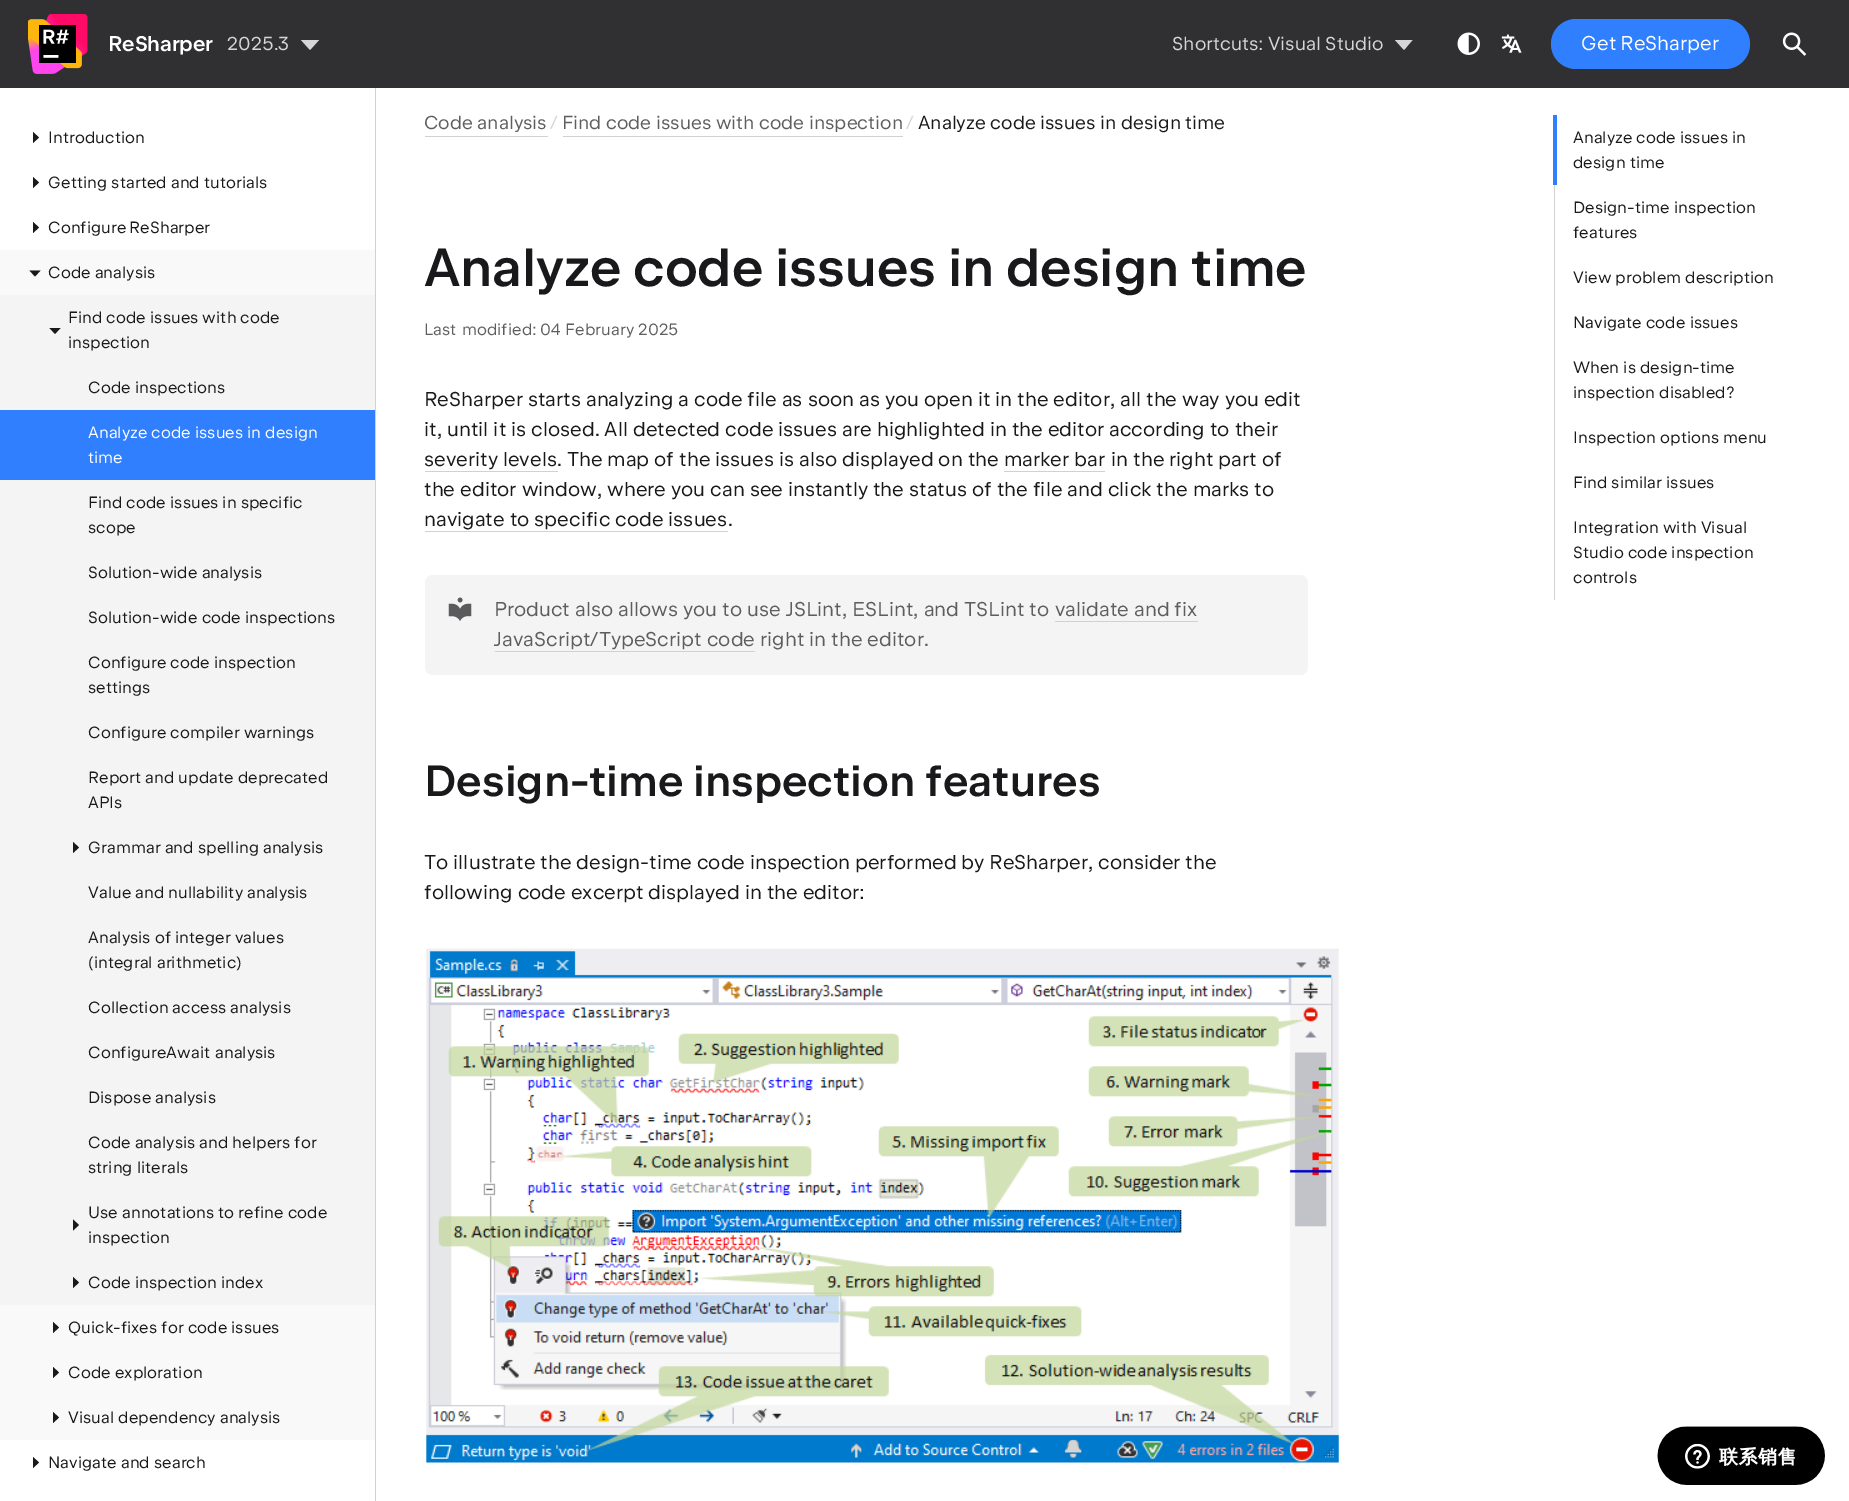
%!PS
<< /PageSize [1849 1501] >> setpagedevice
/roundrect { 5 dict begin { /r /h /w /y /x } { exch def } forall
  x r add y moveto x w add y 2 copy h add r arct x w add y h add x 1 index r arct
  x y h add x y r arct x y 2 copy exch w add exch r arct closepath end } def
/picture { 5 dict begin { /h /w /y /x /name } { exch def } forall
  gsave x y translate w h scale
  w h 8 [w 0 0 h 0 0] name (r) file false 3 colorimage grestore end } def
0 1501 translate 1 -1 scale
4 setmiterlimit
1 setgray
0 0 1849 1501 rectfill
0.188 0.188 0.2 setrgbcolor
0 0 1849 88 rectfill
(img1.rgb) 28 14 60 60 picture
/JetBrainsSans-Medium [21.25 0 0 -21.25 0 0] selectfont
1 setgray
108 51 moveto -0.1 0 (ReSharper) ashow
/JetBrainsSans-Regular [18.75 0 0 -18.75 0 0] selectfont
0.839 setgray
227 50 moveto 0.03 0 (2025.3) ashow
newpath 310 50 moveto 301 40 lineto 319 40 lineto closepath fill
1172 50 moveto 0.03 0 (Shortcuts:) ashow
1268 50 moveto 0.03 0 (Visual Studio) ashow
newpath 1404 50 moveto 1395 40 lineto 1412.5 40 lineto closepath fill
(img2.rgb) 1457 32 23 23 picture
(img3.rgb) 1501 34 21 19 picture
0.188 0.498 1 setrgbcolor
1551 19 199 50 25 roundrect fill
/JetBrainsSans-Regular [20 0 0 -20 0 0] selectfont
1 setgray
1581 50 moveto -1 0 32 0.03 0 (Get ReSharper) awidthshow
(img4.rgb) 1782 32 25 24 picture
0.82 0.82 0.824 setrgbcolor
375 88 1 1413 rectfill
0.098 0.098 0.11 setrgbcolor
newpath 39 137.5 moveto 33 143 lineto 33 132 lineto closepath fill
/JetBrainsSans-Regular [16.25 0 0 -16.25 0 0] selectfont
48 143 moveto 0.1 0 (Introduction) ashow
newpath 39 182.5 moveto 33 188 lineto 33 177 lineto closepath fill
48 188 moveto 0.1 0 (Getting started and tutorials) ashow
newpath 39 227.5 moveto 33 233 lineto 33 222 lineto closepath fill
48 233 moveto -1 0 32 0.1 0 (Configure ReSharper) awidthshow
0.976 setgray
0 250 375 45 rectfill
0.098 0.098 0.11 setrgbcolor
newpath 35 276.5 moveto 29.5 270.5 lineto 40.5 270.5 lineto closepath fill
48 278 moveto 0.1 0 (Code analysis) ashow
0.957 setgray
0 295 375 115 rectfill
0.098 0.098 0.11 setrgbcolor
68 323 moveto 0.1 0 (Find code issues with code) ashow
newpath 55 334 moveto 49.5 328 lineto 60.5 328 lineto closepath fill
68 348 moveto 0.1 0 (inspection) ashow
88 393 moveto 0.1 0 (Code inspections) ashow
0.188 0.498 1 setrgbcolor
0 410 375 70 rectfill
1 setgray
88 438 moveto 0.1 0 (Analyze code issues in design) ashow
88 463 moveto 0.1 0 (time) ashow
0.957 setgray
0 480 375 825 rectfill
0.098 0.098 0.11 setrgbcolor
88 508 moveto 0.1 0 (Find code issues in specific) ashow
88 533 moveto 0.1 0 (scope) ashow
88 578 moveto 0.1 0 (Solution-wide analysis) ashow
88 623 moveto 0.1 0 (Solution-wide code inspections) ashow
88 668 moveto 0.1 0 (Configure code inspection) ashow
88 693 moveto 0.1 0 (settings) ashow
88 738 moveto 0.1 0 (Configure compiler warnings) ashow
88 783 moveto 0.1 0 (Report and update deprecated) ashow
88 808 moveto 0.1 0 (APIs) ashow
newpath 79 847.5 moveto 73 853 lineto 73 842 lineto closepath fill
88 853 moveto 0.1 0 (Grammar and spelling analysis) ashow
88 898 moveto 0.1 0 (Value and nullability analysis) ashow
88 943 moveto 0.1 0 (Analysis of integer values) ashow
88 968 moveto 0.1 0 (\(integral arithmetic\)) ashow
88 1013 moveto 0.1 0 (Collection access analysis) ashow
88 1058 moveto 1 0 32 0.1 0 (ConfigureAwait analysis) awidthshow
88 1103 moveto 0.1 0 (Dispose analysis) ashow
88 1148 moveto 0.1 0 (Code analysis and helpers for) ashow
88 1173 moveto 0.1 0 (string literals) ashow
88 1218 moveto 0.1 0 (Use annotations to refine code) ashow
newpath 79 1225 moveto 73 1230.5 lineto 73 1219.5 lineto closepath fill
88 1243 moveto 0.1 0 (inspection) ashow
newpath 79 1282.5 moveto 73 1288 lineto 73 1277 lineto closepath fill
88 1288 moveto 0.1 0 (Code inspection index) ashow
0.976 setgray
0 1305 375 135 rectfill
0.098 0.098 0.11 setrgbcolor
newpath 59 1327.5 moveto 53 1333 lineto 53 1322 lineto closepath fill
68 1333 moveto 0.1 0 (Quick-fixes for code issues) ashow
newpath 59 1372.5 moveto 53 1378 lineto 53 1367 lineto closepath fill
68 1378 moveto 0.1 0 (Code exploration) ashow
newpath 59 1417.5 moveto 53 1423 lineto 53 1412 lineto closepath fill
68 1423 moveto 0.1 0 (Visual dependency analysis) ashow
newpath 39 1462.5 moveto 33 1468 lineto 33 1457 lineto closepath fill
48 1468 moveto 0.1 0 (Navigate and search) ashow
/JetBrainsSans-Regular [18.75 0 0 -18.75 0 0] selectfont
0.369 0.369 0.376 setrgbcolor
424 129 moveto 0.03 0 (Code analysis) ashow
0.82 0.82 0.824 setrgbcolor
425 136 123 1 rectfill
0.839 setgray
550 129 moveto 0.03 0 (/) ashow
0.369 0.369 0.376 setrgbcolor
562 129 moveto 0.03 0 (Find code issues with code inspection) ashow
0.82 0.82 0.824 setrgbcolor
563 136 340 1 rectfill
0.839 setgray
906 129 moveto 0.03 0 (/) ashow
0.098 0.098 0.11 setrgbcolor
918 129 moveto 0.03 0 (Analyze code issues in design time) ashow
/JetBrainsSans-Medium [53.75 0 0 -53.75 0 0] selectfont
424 286 moveto -0.05 0 (Analyze code issues in design time) ashow
/JetBrainsSans-Regular [16.25 0 0 -16.25 0 0] selectfont
0.369 0.369 0.376 setrgbcolor
424 335 moveto 1 0 32 0.1 0 (Last modified:) awidthshow
540 335 moveto 0.1 0 (04 February 2025) ashow
/JetBrainsSans-Regular [20 0 0 -20 0 0] selectfont
0.098 0.098 0.11 setrgbcolor
424 406 moveto 0.03 0 (ReSharper starts analyzing a code file as soon as you open it in the editor, all the way you edit) ashow
424 436 moveto 0.03 0 (it, until it is closed. All detected code issues are highlighted in the editor according to their) ashow
424 466 moveto 0.03 0 (severity levels. The map of the issues is also displayed on the marker bar) ashow
0.82 0.82 0.824 setrgbcolor
425 471 133 1 rectfill
0.098 0.098 0.11 setrgbcolor
1111 466 moveto 0.03 0 (in the right part of) ashow
0.82 0.82 0.824 setrgbcolor
1004 471 101 1 rectfill
0.098 0.098 0.11 setrgbcolor
424 496 moveto 0.03 0 (the editor window, where you can see instantly the status of the file and click the marks to) ashow
424 526 moveto 0.03 0 (navigate to specific code issues) ashow
0.82 0.82 0.824 setrgbcolor
425 531 303 1 rectfill
0.098 0.098 0.11 setrgbcolor
728 526 moveto 0.03 0 (.) ashow
0.957 setgray
425 575 883 100 8 roundrect fill
(img5.rgb) 448 597 24 24 picture
0.369 0.369 0.376 setrgbcolor
494 616 moveto 0.03 0 (Product also allows you to use JSLint, ESLint, and TSLint to) ashow
1055 616 moveto 0.03 0 (validate and fix) ashow
0.82 0.82 0.824 setrgbcolor
1055 621 143 1 rectfill
0.369 0.369 0.376 setrgbcolor
494 646 moveto 0.03 0 (JavaScript/TypeScript code right in the editor.) ashow
0.82 0.82 0.824 setrgbcolor
495 651 260 1 rectfill
/JetBrainsSans-Medium [43.75 0 0 -43.75 0 0] selectfont
0.098 0.098 0.11 setrgbcolor
424 796 moveto 0.03 0 (Design-time inspection features) ashow
/JetBrainsSans-Regular [20 0 0 -20 0 0] selectfont
424 869 moveto -0.1 0 32 0.03 0 (To illustrate the design-time code inspection performed by ReSharper, consider the) awidthshow
424 899 moveto 0.03 0 (following code excerpt displayed in the editor:) ashow
(img6.rgb) 426 948 913 515 picture
0.188 0.498 1 setrgbcolor
1553 115 4 70 rectfill
/JetBrainsSans-Regular [16.25 0 0 -16.25 0 0] selectfont
0.098 0.098 0.11 setrgbcolor
1573 143 moveto 0.1 0 (Analyze code issues in) ashow
1573 168 moveto 0.1 0 (design time) ashow
0.82 0.82 0.824 setrgbcolor
1554 185 1 415 rectfill
0.098 0.098 0.11 setrgbcolor
1573 213 moveto 0.1 0 (Design-time inspection) ashow
1573 238 moveto 0.1 0 (features) ashow
1573 283 moveto 0.1 0 (View problem description) ashow
1573 328 moveto 0.1 0 (Navigate code issues) ashow
1573 373 moveto 0.1 0 (When is design-time) ashow
1573 398 moveto 0.1 0 (inspection disabled?) ashow
1573 443 moveto 0.1 0 (Inspection options menu) ashow
1573 488 moveto 0.1 0 (Find similar issues) ashow
1573 533 moveto 0.1 0 (Integration with Visual) ashow
1573 558 moveto 0.1 0 (Studio code inspection) ashow
1573 583 moveto 0.1 0 (controls) ashow
(img7.rgb) 1657 1426 168 59 picture
showpage
